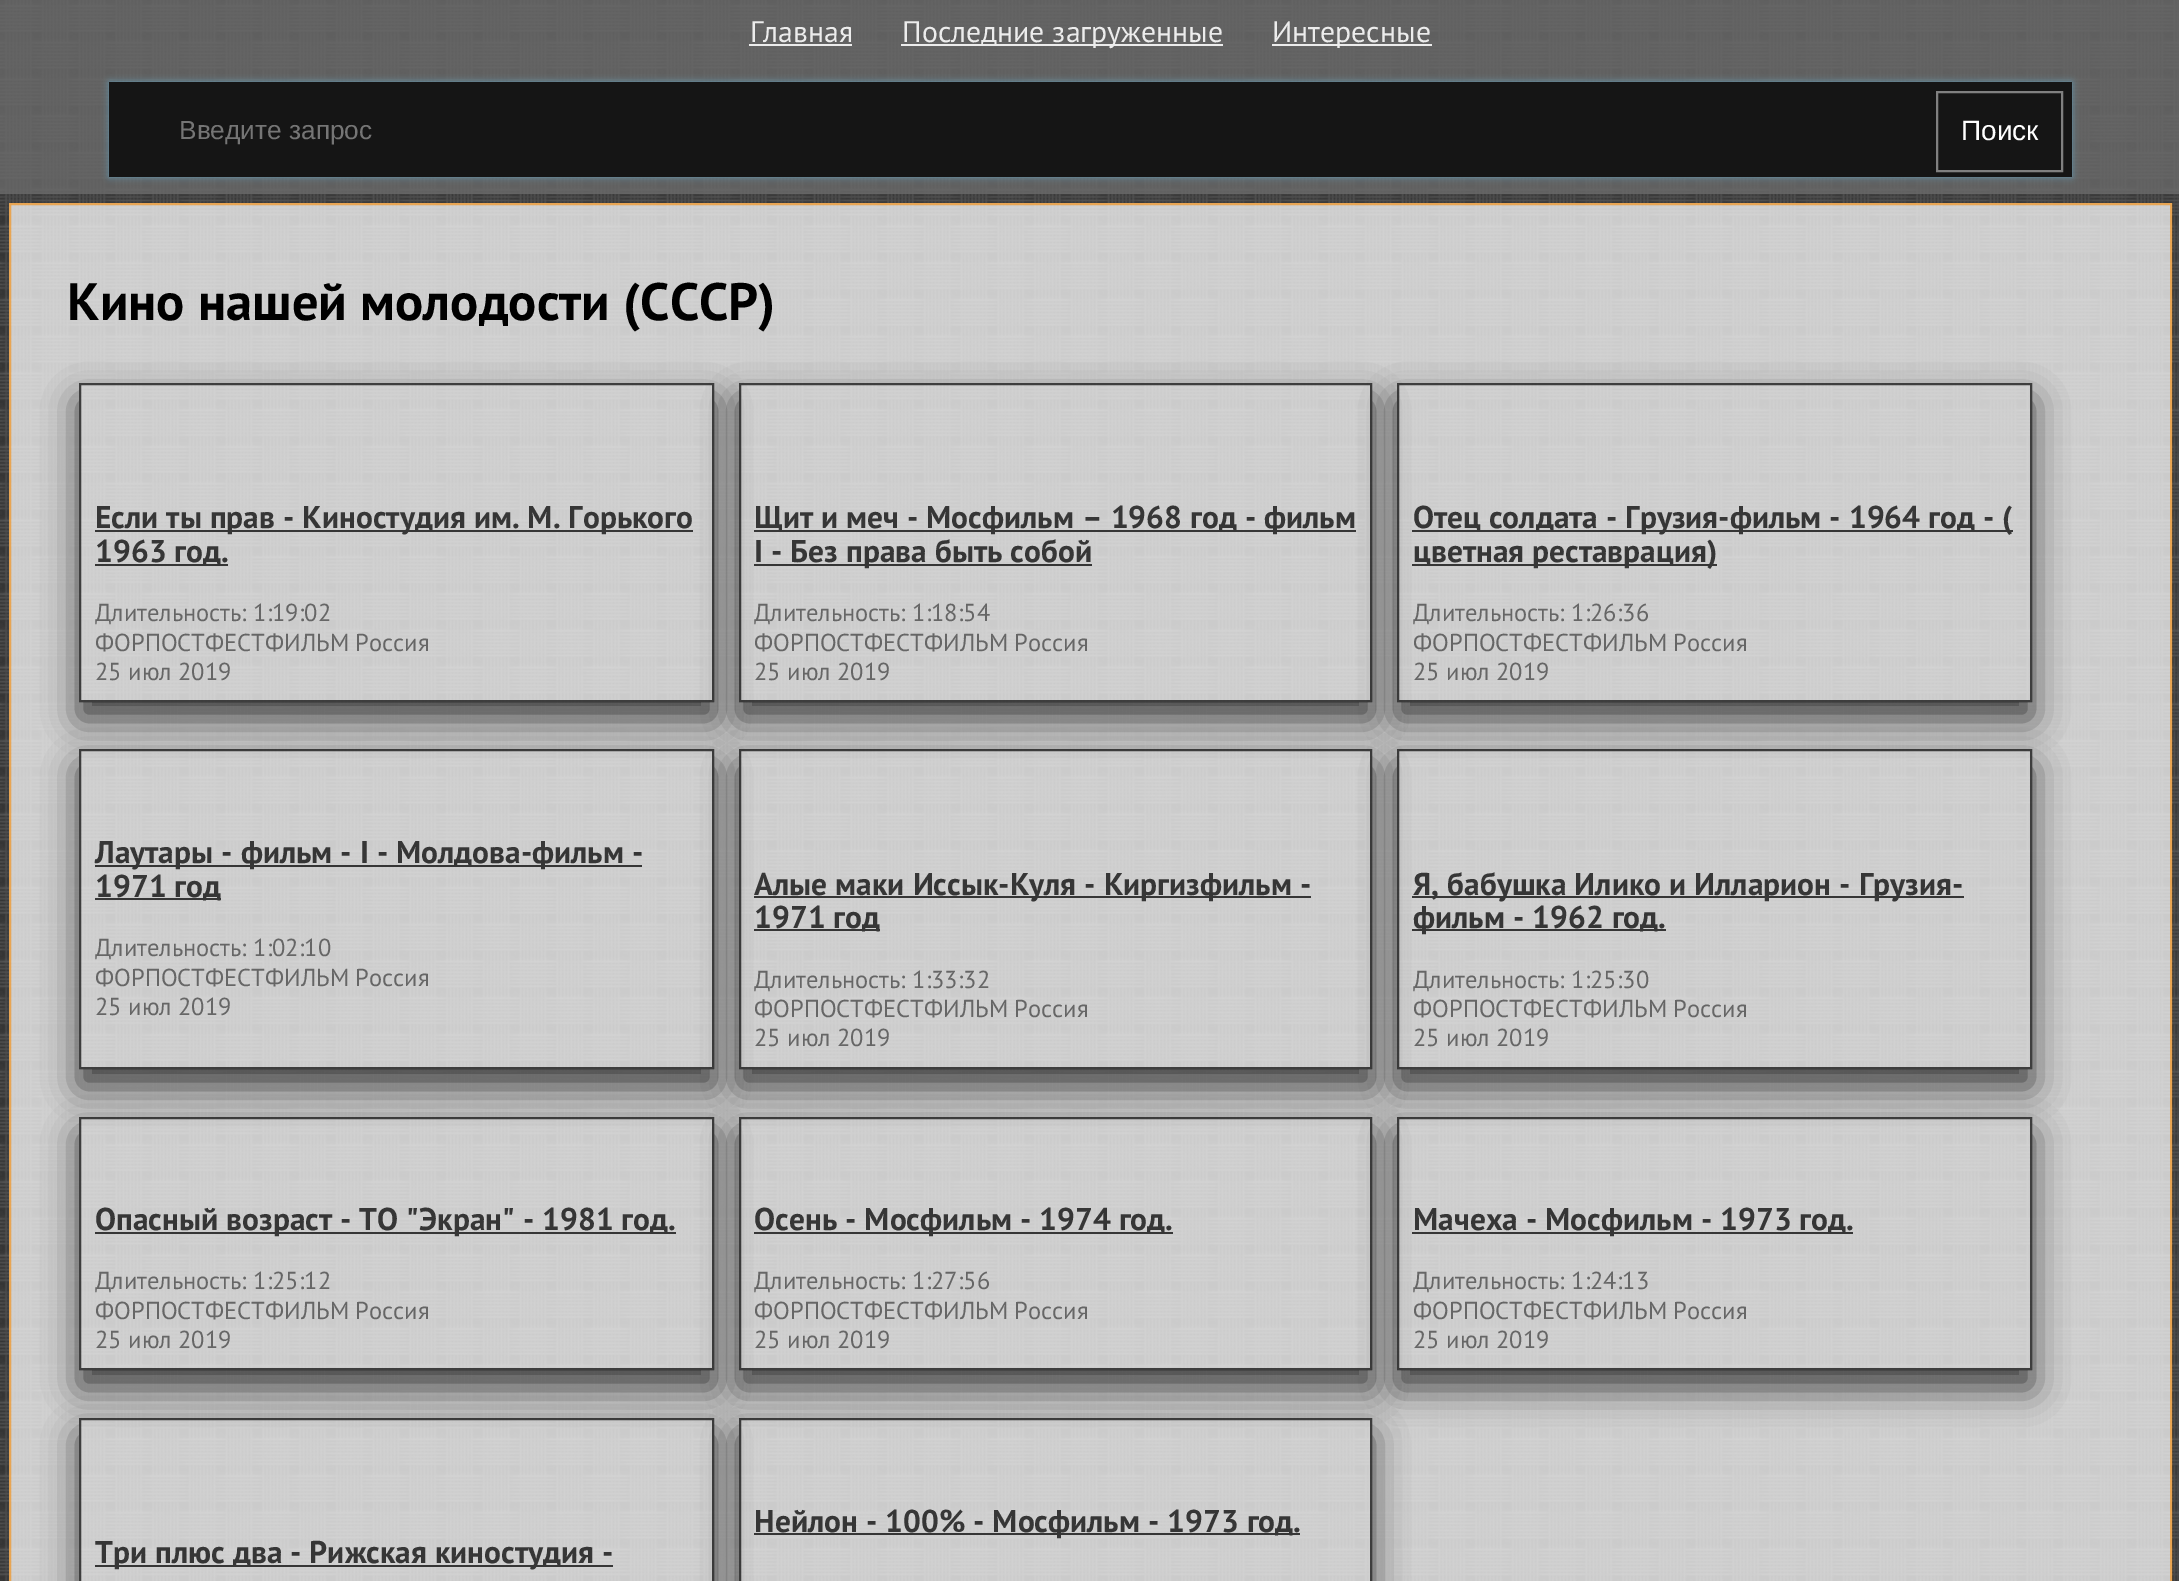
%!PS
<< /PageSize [2179 1581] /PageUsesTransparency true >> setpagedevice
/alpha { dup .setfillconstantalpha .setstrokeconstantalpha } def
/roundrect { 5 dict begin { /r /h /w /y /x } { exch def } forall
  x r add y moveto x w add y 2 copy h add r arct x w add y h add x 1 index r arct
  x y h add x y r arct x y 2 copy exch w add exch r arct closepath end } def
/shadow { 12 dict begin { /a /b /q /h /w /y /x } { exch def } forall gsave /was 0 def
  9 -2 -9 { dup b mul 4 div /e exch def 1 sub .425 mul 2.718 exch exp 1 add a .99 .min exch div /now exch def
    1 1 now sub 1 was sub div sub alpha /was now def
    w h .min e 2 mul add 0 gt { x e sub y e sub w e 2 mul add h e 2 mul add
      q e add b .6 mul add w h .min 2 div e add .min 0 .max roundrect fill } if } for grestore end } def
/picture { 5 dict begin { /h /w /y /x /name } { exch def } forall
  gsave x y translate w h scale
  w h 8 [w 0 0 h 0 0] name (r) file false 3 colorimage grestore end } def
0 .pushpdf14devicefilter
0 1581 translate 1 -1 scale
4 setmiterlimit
1 setgray
0 0 2179 1581 rectfill
(img1.rgb) 0 0 2179 1581 picture
0.8 alpha
0.416 setgray
0 0 2179 194 rectfill
/PTSans-Regular [29.75 0 0 -29.75 0 0] selectfont
1 alpha
0.925 setgray
750 42 moveto (Главная) show
749 44 103 2 rectfill
901 44 322 2 rectfill
902 42 moveto (Последние загруженные) show
1272 44 160 2 rectfill
1272 42 moveto (Интересные) show
0.404 0.8 1 setrgbcolor
109 82 1963 95 0 3.5 0.5 shadow
0.082 setgray
109 82 1963 95 rectfill
/LiberationSans-Regular [26.25 0 0 -26.25 0 0] selectfont
0.459 setgray
179 139 moveto (Введите запрос) show
0.502 setgray
2 setlinewidth
1937 92 125 79 rectstroke
/LiberationSans-Regular [28 0 0 -28 0 0] selectfont
1 setgray
1961 140 moveto (Поиск) show
0.75 alpha
0.992 setgray
9 203 2163 1378 rectfill
0.6 alpha
0.973 0.537 0.004 setrgbcolor
10 204 2161 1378 rectstroke
/PTSans-Bold [52.5 0 0 -52.5 0 0] selectfont
1 alpha
0 setgray
67 320 moveto (Кино нашей молодости \(СССР\)) show
gsave
newpath 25 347 moveto 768 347 lineto 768 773 lineto 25 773 lineto closepath 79 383 moveto 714 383 lineto 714 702 lineto 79 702 lineto closepath eoclip newpath
79 401 635 318 0 17.5 0.67 shadow
grestore
0.7 alpha
80 384 633 317 rectstroke
1 alpha
0.212 setgray
95 530 598 2 rectfill
/PTSans-Bold [31.5 0 0 -31.5 0 0] selectfont
95 528 moveto (Если ты прав - Киностудия им. М. Горького) show
95 564 133 2 rectfill
95 562 moveto (1963 год.) show
/PTSans-Regular [24.5 0 0 -24.5 0 0] selectfont
0.4 setgray
95 621 moveto (Длительность: 1:19:02) show
95 651 moveto (ФОРПОСТФЕСТФИЛЬМ Россия) show
95 680 moveto (25 июл 2019) show
gsave
newpath 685 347 moveto 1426 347 lineto 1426 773 lineto 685 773 lineto closepath 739 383 moveto 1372 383 lineto 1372 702 lineto 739 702 lineto closepath eoclip newpath
0 setgray
739 401 633 318 0 17.5 0.67 shadow
grestore
0.7 alpha
0 setgray
740 384 631 317 rectstroke
1 alpha
0.212 setgray
754 530 602 2 rectfill
/PTSans-Bold [31.5 0 0 -31.5 0 0] selectfont
754 528 moveto (Щит и меч - Мосфильм – 1968 год - фильм) show
754 564 338 2 rectfill
754 562 moveto (I - Без права быть собой) show
/PTSans-Regular [24.5 0 0 -24.5 0 0] selectfont
0.4 setgray
754 621 moveto (Длительность: 1:18:54) show
754 651 moveto (ФОРПОСТФЕСТФИЛЬМ Россия) show
754 680 moveto (25 июл 2019) show
gsave
newpath 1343 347 moveto 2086 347 lineto 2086 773 lineto 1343 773 lineto closepath 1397 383 moveto 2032 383 lineto 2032 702 lineto 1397 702 lineto closepath eoclip newpath
0 setgray
1397 401 635 318 0 17.5 0.67 shadow
grestore
0.7 alpha
0 setgray
1398 384 633 317 rectstroke
1 alpha
0.212 setgray
1412 530 601 2 rectfill
/PTSans-Bold [31.5 0 0 -31.5 0 0] selectfont
1413 528 moveto (Отец солдата - Грузия-фильм - 1964 год - \() show
1412 564 305 2 rectfill
1413 562 moveto (цветная реставрация\)) show
/PTSans-Regular [24.5 0 0 -24.5 0 0] selectfont
0.4 setgray
1413 621 moveto (Длительность: 1:26:36) show
1413 651 moveto (ФОРПОСТФЕСТФИЛЬМ Россия) show
1413 680 moveto (25 июл 2019) show
gsave
newpath 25 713 moveto 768 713 lineto 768 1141 lineto 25 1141 lineto closepath 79 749 moveto 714 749 lineto 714 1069 lineto 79 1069 lineto closepath eoclip newpath
0 setgray
79 767 635 320 0 17.5 0.67 shadow
grestore
0.7 alpha
0 setgray
80 750 633 318 rectstroke
1 alpha
0.212 setgray
95 865 547 2 rectfill
/PTSans-Bold [31.5 0 0 -31.5 0 0] selectfont
95 863 moveto (Лаутары - фильм - I - Молдова-фильм -) show
95 898 126 2 rectfill
95 897 moveto (1971 год) show
/PTSans-Regular [24.5 0 0 -24.5 0 0] selectfont
0.4 setgray
95 956 moveto (Длительность: 1:02:10) show
95 986 moveto (ФОРПОСТФЕСТФИЛЬМ Россия) show
95 1015 moveto (25 июл 2019) show
gsave
newpath 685 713 moveto 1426 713 lineto 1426 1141 lineto 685 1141 lineto closepath 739 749 moveto 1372 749 lineto 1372 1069 lineto 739 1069 lineto closepath eoclip newpath
0 setgray
739 767 633 320 0 17.5 0.67 shadow
grestore
0.7 alpha
0 setgray
740 750 631 318 rectstroke
1 alpha
0.212 setgray
754 896 557 2 rectfill
/PTSans-Bold [31.5 0 0 -31.5 0 0] selectfont
754 895 moveto (Алые маки Иссык-Куля - Киргизфильм -) show
754 929 126 2 rectfill
754 928 moveto (1971 год) show
/PTSans-Regular [24.5 0 0 -24.5 0 0] selectfont
0.4 setgray
754 988 moveto (Длительность: 1:33:32) show
754 1017 moveto (ФОРПОСТФЕСТФИЛЬМ Россия) show
754 1046 moveto (25 июл 2019) show
gsave
newpath 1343 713 moveto 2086 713 lineto 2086 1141 lineto 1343 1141 lineto closepath 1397 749 moveto 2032 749 lineto 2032 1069 lineto 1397 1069 lineto closepath eoclip newpath
0 setgray
1397 767 635 320 0 17.5 0.67 shadow
grestore
0.7 alpha
0 setgray
1398 750 633 318 rectstroke
1 alpha
0.212 setgray
1412 896 552 2 rectfill
/PTSans-Bold [31.5 0 0 -31.5 0 0] selectfont
1413 895 moveto (Я, бабушка Илико и Илларион - Грузия-) show
1412 929 254 2 rectfill
1413 928 moveto (фильм - 1962 год.) show
/PTSans-Regular [24.5 0 0 -24.5 0 0] selectfont
0.4 setgray
1413 988 moveto (Длительность: 1:25:30) show
1413 1017 moveto (ФОРПОСТФЕСТФИЛЬМ Россия) show
1413 1046 moveto (25 июл 2019) show
gsave
newpath 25 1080 moveto 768 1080 lineto 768 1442 lineto 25 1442 lineto closepath 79 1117 moveto 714 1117 lineto 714 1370 lineto 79 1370 lineto closepath eoclip newpath
0 setgray
79 1134 635 254 0 17.5 0.67 shadow
grestore
0.7 alpha
0 setgray
80 1118 633 251 rectstroke
1 alpha
0.212 setgray
95 1232 581 2 rectfill
/PTSans-Bold [31.5 0 0 -31.5 0 0] selectfont
95 1230 moveto (Опасный возраст - ТО "Экран" - 1981 год.) show
/PTSans-Regular [24.5 0 0 -24.5 0 0] selectfont
0.4 setgray
95 1289 moveto (Длительность: 1:25:12) show
95 1319 moveto (ФОРПОСТФЕСТФИЛЬМ Россия) show
95 1348 moveto (25 июл 2019) show
gsave
newpath 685 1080 moveto 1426 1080 lineto 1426 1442 lineto 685 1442 lineto closepath 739 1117 moveto 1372 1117 lineto 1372 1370 lineto 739 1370 lineto closepath eoclip newpath
0 setgray
739 1134 633 254 0 17.5 0.67 shadow
grestore
0.7 alpha
0 setgray
740 1118 631 251 rectstroke
1 alpha
0.212 setgray
754 1232 419 2 rectfill
/PTSans-Bold [31.5 0 0 -31.5 0 0] selectfont
754 1230 moveto (Осень - Мосфильм - 1974 год.) show
/PTSans-Regular [24.5 0 0 -24.5 0 0] selectfont
0.4 setgray
754 1289 moveto (Длительность: 1:27:56) show
754 1319 moveto (ФОРПОСТФЕСТФИЛЬМ Россия) show
754 1348 moveto (25 июл 2019) show
gsave
newpath 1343 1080 moveto 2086 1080 lineto 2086 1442 lineto 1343 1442 lineto closepath 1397 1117 moveto 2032 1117 lineto 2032 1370 lineto 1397 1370 lineto closepath eoclip newpath
0 setgray
1397 1134 635 254 0 17.5 0.67 shadow
grestore
0.7 alpha
0 setgray
1398 1118 633 251 rectstroke
1 alpha
0.212 setgray
1412 1232 441 2 rectfill
/PTSans-Bold [31.5 0 0 -31.5 0 0] selectfont
1413 1230 moveto (Мачеха - Мосфильм - 1973 год.) show
/PTSans-Regular [24.5 0 0 -24.5 0 0] selectfont
0.4 setgray
1413 1289 moveto (Длительность: 1:24:13) show
1413 1319 moveto (ФОРПОСТФЕСТФИЛЬМ Россия) show
1413 1348 moveto (25 июл 2019) show
gsave
newpath 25 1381 moveto 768 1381 lineto 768 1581 lineto 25 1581 lineto closepath 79 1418 moveto 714 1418 lineto 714 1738 lineto 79 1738 lineto closepath eoclip newpath
0 setgray
79 1435 635 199 0 17.5 0.67 shadow
grestore
0.7 alpha
0 setgray
80 1419 633 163 rectstroke
gsave
newpath 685 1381 moveto 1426 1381 lineto 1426 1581 lineto 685 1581 lineto closepath 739 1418 moveto 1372 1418 lineto 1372 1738 lineto 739 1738 lineto closepath eoclip newpath
1 alpha
739 1435 633 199 0 17.5 0.67 shadow
grestore
740 1419 631 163 rectstroke
1 alpha
0.212 setgray
754 1533 546 2 rectfill
/PTSans-Bold [31.5 0 0 -31.5 0 0] selectfont
754 1532 moveto (Нейлон - 100% - Мосфильм - 1973 год.) show
95 1565 518 2 rectfill
95 1563 moveto (Три плюс два - Рижская киностудия -) show
.poppdf14devicefilter showpage
